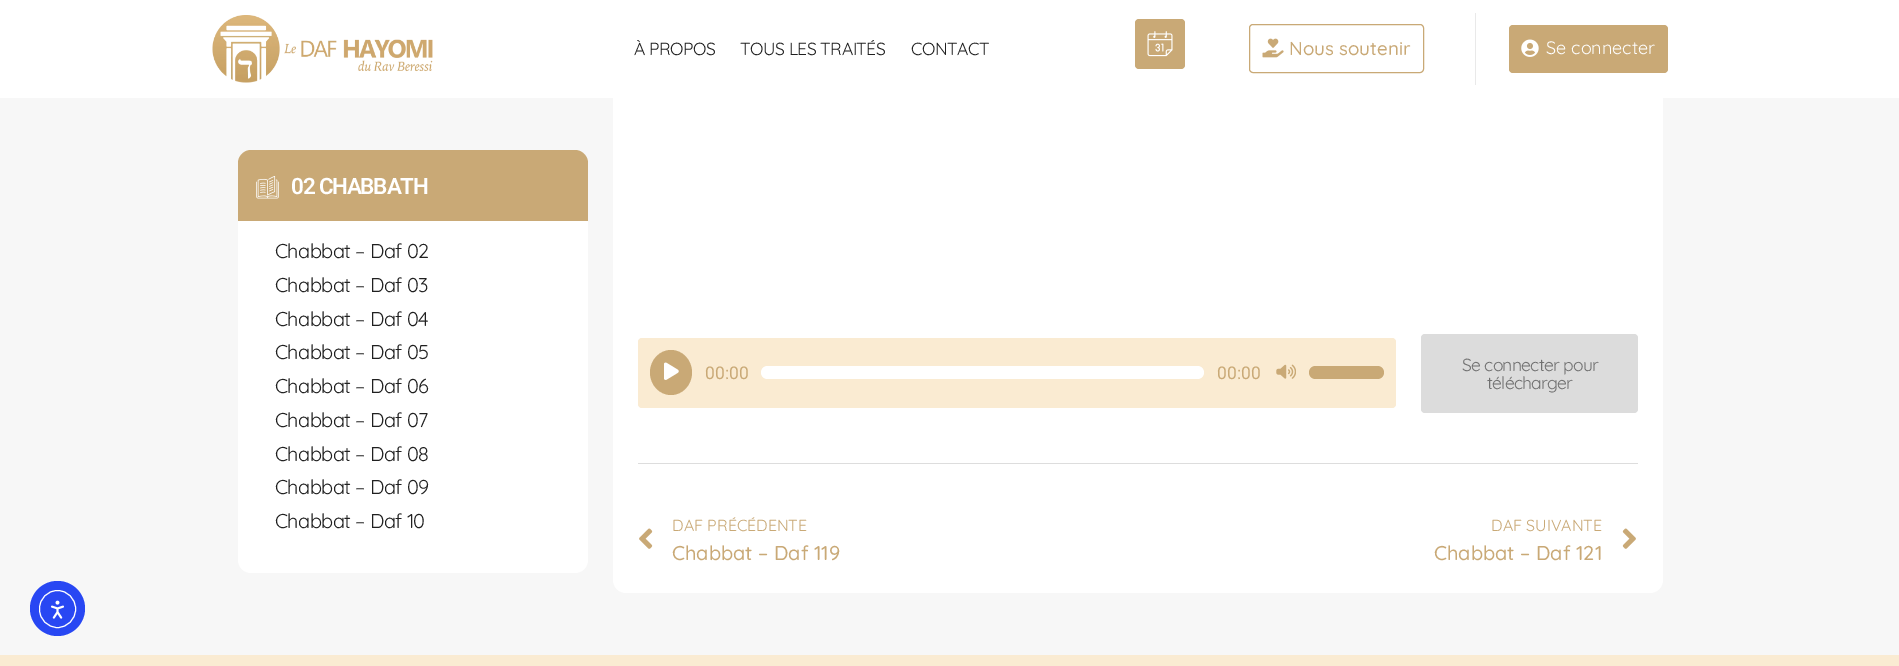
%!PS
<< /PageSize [1899 666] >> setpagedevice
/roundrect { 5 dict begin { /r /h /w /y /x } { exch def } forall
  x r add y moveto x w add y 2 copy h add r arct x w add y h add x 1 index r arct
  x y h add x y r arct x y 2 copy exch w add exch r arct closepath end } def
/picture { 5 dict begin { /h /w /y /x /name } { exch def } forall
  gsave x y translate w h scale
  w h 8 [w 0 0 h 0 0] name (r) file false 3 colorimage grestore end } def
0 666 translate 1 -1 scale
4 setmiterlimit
0.969 setgray
0 0 1899 666 rectfill
1 setgray
613 -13 1050 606 13 roundrect fill
0 0 1899 98 rectfill
(img1.rgb) 212 15 221 68 picture
/Quicksand-Regular [17.5 0 0 -17.5 0 0] selectfont
0.125 setgray
634 55 moveto -0.5 0 (À PROPOS) ashow
740 55 moveto -0.5 0 (TOUS LES TRAITÉS) ashow
911 55 moveto -0.5 0 (CONTACT) ashow
0.788 0.663 0.463 setrgbcolor
1135 19 50 50 4 roundrect fill
(img2.rgb) 1147 31 26 26 picture
1249.5 24.5 174 48 3.5 roundrect stroke
(img3.rgb) 1262 38 22 20 picture
/Quicksand-Medium [18.75 0 0 -18.75 0 0] selectfont
1289 55 moveto (Nous soutenir) show
0.914 setgray
1475 13 1 72 rectfill
0.788 0.663 0.463 setrgbcolor
1509 25 159 48 4 roundrect fill
(img4.rgb) 1521 39 18 18 picture
/Quicksand-Regular [18 0 0 -18 0 0] selectfont
1 setgray
1546 54 moveto (Se connecter) show
238 150 350 423 13 roundrect fill
0.788 0.663 0.463 setrgbcolor
newpath 251 150 moveto 575 150 lineto 582 150 588 156 588 163 curveto 588 221 lineto 238 221 lineto 238 163 lineto 238 156 244 150 251 150 curveto closepath fill
(img5.rgb) 256 176 23 23 picture
/Roboto-SemiBold [22.5 0 0 -22.5 0 0] selectfont
1 setgray
291 194 moveto -1.25 0 (02 CHABBATH) ashow
/Quicksand-Regular [20 0 0 -20 0 0] selectfont
0.125 setgray
275 258 moveto -0.6 0 (Chabbat – Daf 02) ashow
275 292 moveto -0.6 0 (Chabbat – Daf 03) ashow
275 326 moveto -0.6 0 (Chabbat – Daf 04) ashow
275 359 moveto -0.6 0 (Chabbat – Daf 05) ashow
275 393 moveto -0.6 0 (Chabbat – Daf 06) ashow
275 427 moveto -0.6 0 (Chabbat – Daf 07) ashow
275 461 moveto -0.6 0 (Chabbat – Daf 08) ashow
275 494 moveto -0.6 0 (Chabbat – Daf 09) ashow
275 528 moveto -0.6 0 (Chabbat – Daf 10) ashow
0.98 0.922 0.824 setrgbcolor
638 338 758 70 4 roundrect fill
0.788 0.663 0.463 setrgbcolor
newpath 671 350 moveto 682.5 350 692 360 692 372.5 curveto 692 385 682.5 395 671 395 curveto 659.5 395 650 385 650 372.5 curveto 650 360 659.5 350 671 350 curveto closepath fill
(img6.rgb) 664 362 15 18 picture
/Roboto-Regular [17.5 0 0 -17.5 0 0] selectfont
705 379 moveto (00:00) show
1 setgray
761 366 443 13 6.5 roundrect fill
0.788 0.663 0.463 setrgbcolor
1217 379 moveto (00:00) show
(img7.rgb) 1276 364 20 15 picture
1309 366 75 13 6.5 roundrect fill
0.863 setgray
1421 334 217 79 4 roundrect fill
/Quicksand-Regular [17.5 0 0 -17.5 0 0] selectfont
0.439 setgray
1462 371 moveto -0.75 0 (Se connecter pour) ashow
1487 389 moveto -0.75 0 (télécharger) ashow
0.867 setgray
638 463 1000 1 rectfill
(img8.rgb) 639 528 14 21 picture
/Quicksand-Regular [16 0 0 -16 0 0] selectfont
0.788 0.663 0.463 setrgbcolor
672 531 moveto (DAF PRÉCÉDENTE) show
/Quicksand-Medium [20 0 0 -20 0 0] selectfont
672 560 moveto (Chabbat – Daf 119) show
/Quicksand-Regular [16 0 0 -16 0 0] selectfont
1491 531 moveto (DAF SUIVANTE) show
/Quicksand-Medium [20 0 0 -20 0 0] selectfont
1434 560 moveto (Chabbat – Daf 121) show
(img9.rgb) 1622 528 14 21 picture
0.157 0.278 0.953 setrgbcolor
newpath 57.5 608.5 27.5 0 360 arc closepath fill
1 setgray
39.5 590.5 36 37 18 roundrect stroke
(img10.rgb) 50 600 14 19 picture
0.98 0.922 0.824 setrgbcolor
0 655 1899 11 rectfill
showpage
